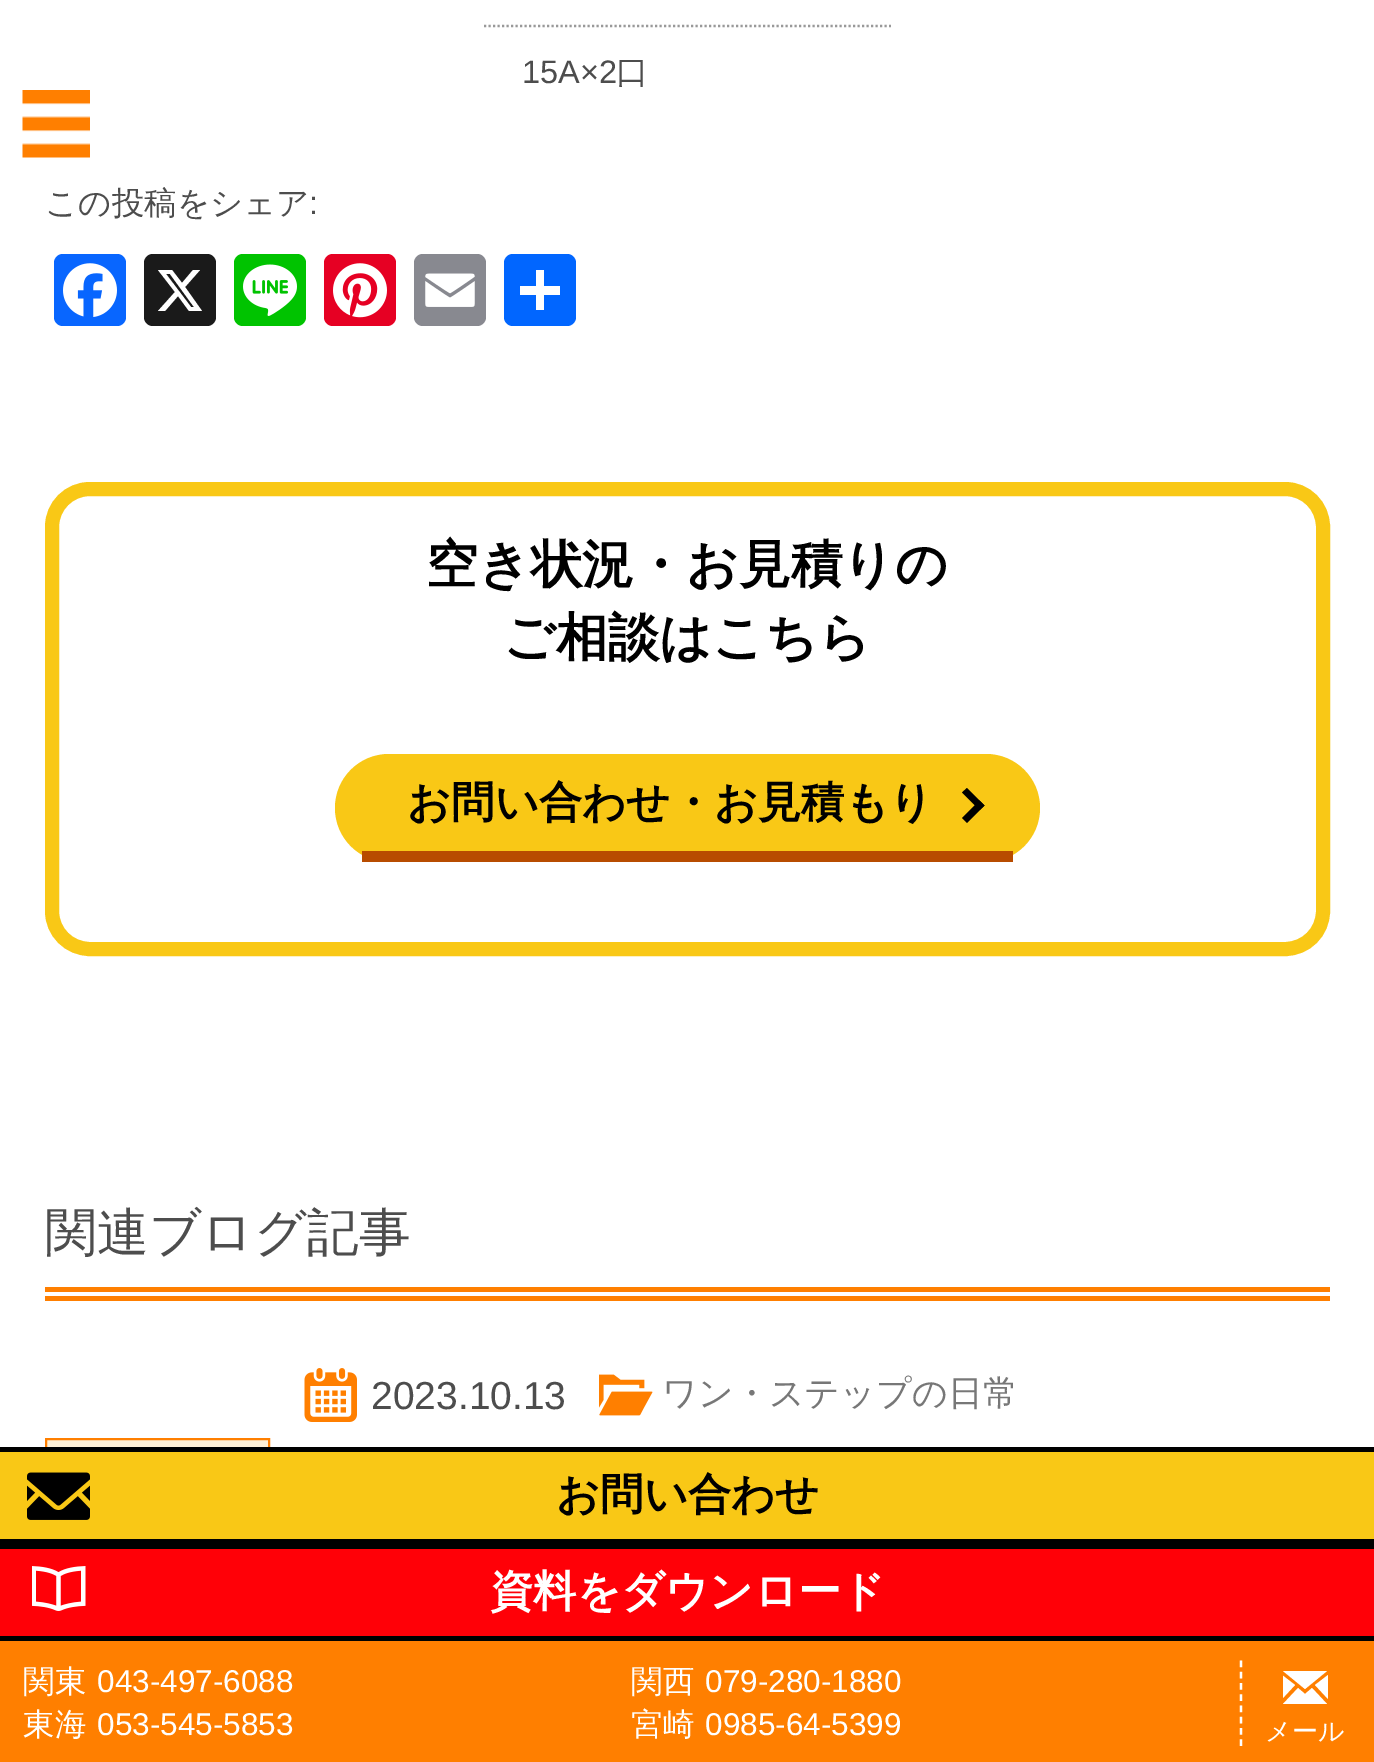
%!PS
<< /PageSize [1374 1762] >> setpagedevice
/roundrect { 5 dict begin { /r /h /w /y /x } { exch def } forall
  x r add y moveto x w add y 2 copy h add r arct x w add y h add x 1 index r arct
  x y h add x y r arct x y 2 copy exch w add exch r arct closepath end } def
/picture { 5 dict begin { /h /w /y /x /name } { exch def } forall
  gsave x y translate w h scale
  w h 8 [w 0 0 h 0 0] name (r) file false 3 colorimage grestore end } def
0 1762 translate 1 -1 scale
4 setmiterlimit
1 setgray
0 0 1374 1762 rectfill
0.6 setgray
2.2 setlinewidth
[2.25 2.25] 0 setdash
newpath 484 26 moveto 891 26 lineto stroke
/LiberationSans-Regular [32.5 0 0 -32.5 0 0] selectfont
0.302 setgray
522 83 moveto (15A×2) show
/WenQuanYiZenHei-Medium [32.5 0 0 -32.5 0 0] selectfont
616 83 moveto (口) show
45 214 moveto (この投稿をシェア) show
/LiberationSans-Regular [32.5 0 0 -32.5 0 0] selectfont
309 214 moveto (:) show
0.031 0.4 1 setrgbcolor
54 254 72 72 9 roundrect fill
(img1.rgb) 63 263 54 54 picture
0.102 setgray
144 254 72 72 9 roundrect fill
1 setgray
newpath 193 270 moveto 200 270 lineto 185 287 lineto 202 311 lineto 189 311 lineto 178 296 lineto 165 311 lineto 158 311 lineto 175 292 lineto 158 270 lineto 172 270 lineto 182 283 lineto closepath 191 307 moveto 194 307 lineto 170 274 lineto 166 274 lineto closepath fill
0 0.765 0 setrgbcolor
234 254 72 72 9 roundrect fill
(img2.rgb) 243 264 54 52 picture
0.902 0 0.137 setrgbcolor
324 254 72 72 9 roundrect fill
(img3.rgb) 333 263 54 55 picture
0.533 0.537 0.565 setrgbcolor
414 254 72 72 9 roundrect fill
(img4.rgb) 425 273 50 34 picture
0.004 0.4 1 setrgbcolor
504 254 72 72 9 roundrect fill
1 setgray
536 270 8 40 rectfill
520 286 40 9 rectfill
0.976 0.784 0.086 setrgbcolor
14 setlinewidth
[] 0 setdash
52 489 1271 460 38 roundrect stroke
/WenQuanYiZenHei-Bold [51.75 0 0 -51.75 0 0] selectfont
0 setgray
426 582 moveto (空き状況・お見積りの) show
503 655 moveto (ご相談はこちら) show
0.976 0.784 0.086 setrgbcolor
335 754 705 108 54 roundrect fill
0.722 0.298 0 setrgbcolor
362 851 651 11 rectfill
/WenQuanYiZenHei-Bold [43.25 0 0 -43.25 0 0] selectfont
0 setgray
407 817 moveto (お問い合わせ・お見積もり) show
newpath 967 788 moveto 984.5 805.5 lineto 979.5 810 lineto 962 792.5 lineto closepath fill
newpath 979.5 800.5 moveto 984.5 805.5 lineto 967 823 lineto 962 818 lineto closepath fill
1 0.498 0 setrgbcolor
45 1287 1285 5 rectfill
45 1296 1285 5 rectfill
/WenQuanYiZenHei-Medium [51.75 0 0 -51.75 0 0] selectfont
0.302 setgray
45 1250 moveto (関連ブログ記事) show
(img5.rgb) 304 1368 53 54 picture
/LiberationSans-Regular [39 0 0 -39 0 0] selectfont
371 1409 moveto (2023.10.13) show
(img6.rgb) 599 1374 54 42 picture
/WenQuanYiZenHei-Medium [35 0 0 -35 0 0] selectfont
0.467 setgray
662 1405 moveto (ワン・ステップの日常) show
1 0.945 0.843 setrgbcolor
47 1440 221 7 rectfill
1 0.498 0 setrgbcolor
2 setlinewidth
46 1439 223 167 rectstroke
0.976 0.784 0.086 setrgbcolor
0 1452 1374 87 rectfill
0 setgray
0 1447 1374 5 rectfill
0 1539 1374 10 rectfill
(img7.rgb) 27 1472 63 48 picture
/WenQuanYiZenHei-Bold [43.25 0 0 -43.25 0 0] selectfont
556 1509 moveto (お問い合わせ) show
1 0 0.027 setrgbcolor
0 1549 1374 87 rectfill
0 setgray
0 1636 1374 5 rectfill
(img8.rgb) 32 1566 54 45 picture
1 setgray
490 1606 moveto (資料をダウンロード) show
1 0.498 0 setrgbcolor
0 1641 1374 121 rectfill
/WenQuanYiZenHei-Medium [31.5 0 0 -31.5 0 0] selectfont
1 setgray
23 1692 moveto (関東) show
/LiberationSans-Regular [31.5 0 0 -31.5 0 0] selectfont
97 1692 moveto (043-497-6088) show
/WenQuanYiZenHei-Medium [31.5 0 0 -31.5 0 0] selectfont
631 1692 moveto (関西) show
/LiberationSans-Regular [31.5 0 0 -31.5 0 0] selectfont
705 1692 moveto (079-280-1880) show
/WenQuanYiZenHei-Medium [31.5 0 0 -31.5 0 0] selectfont
23 1735 moveto (東海) show
/LiberationSans-Regular [31.5 0 0 -31.5 0 0] selectfont
97 1735 moveto (053-545-5853) show
/WenQuanYiZenHei-Medium [31.5 0 0 -31.5 0 0] selectfont
631 1735 moveto (宮崎) show
/LiberationSans-Regular [31.5 0 0 -31.5 0 0] selectfont
705 1735 moveto (0985-64-5399) show
2.2 setlinewidth
[6.75 4.5] 0 setdash
newpath 1241 1660.5 moveto 1241 1746 lineto stroke
gsave
1283 1661 45 54 rectclip
newpath 1305 1689 moveto 1283 1671 lineto 1327 1671 lineto closepath 1295 1685 moveto 1282 1675 lineto 1282 1699 lineto closepath 1315 1685 moveto 1328 1699 lineto 1328 1675 lineto closepath 1312 1688 moveto 1305 1694 lineto 1298 1688 lineto 1283 1704 lineto 1327 1704 lineto closepath fill
grestore
/WenQuanYiZenHei-Medium [26 0 0 -26 0 0] selectfont
1265 1740 moveto (メール) show
(img9.rgb) 22 90 68 68 picture
showpage
